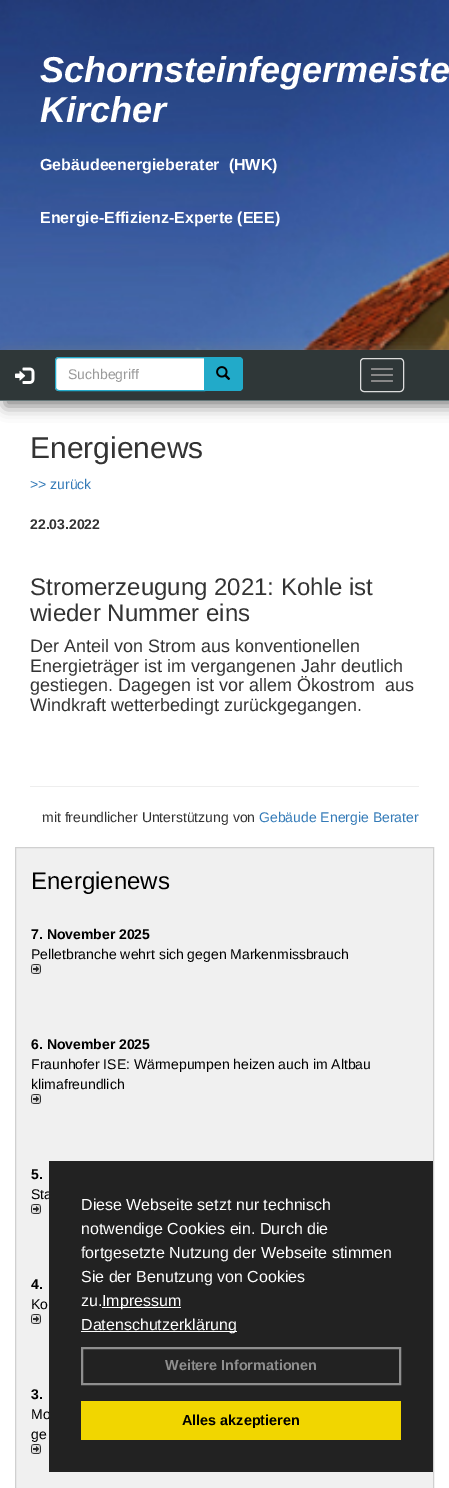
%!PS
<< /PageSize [449 1488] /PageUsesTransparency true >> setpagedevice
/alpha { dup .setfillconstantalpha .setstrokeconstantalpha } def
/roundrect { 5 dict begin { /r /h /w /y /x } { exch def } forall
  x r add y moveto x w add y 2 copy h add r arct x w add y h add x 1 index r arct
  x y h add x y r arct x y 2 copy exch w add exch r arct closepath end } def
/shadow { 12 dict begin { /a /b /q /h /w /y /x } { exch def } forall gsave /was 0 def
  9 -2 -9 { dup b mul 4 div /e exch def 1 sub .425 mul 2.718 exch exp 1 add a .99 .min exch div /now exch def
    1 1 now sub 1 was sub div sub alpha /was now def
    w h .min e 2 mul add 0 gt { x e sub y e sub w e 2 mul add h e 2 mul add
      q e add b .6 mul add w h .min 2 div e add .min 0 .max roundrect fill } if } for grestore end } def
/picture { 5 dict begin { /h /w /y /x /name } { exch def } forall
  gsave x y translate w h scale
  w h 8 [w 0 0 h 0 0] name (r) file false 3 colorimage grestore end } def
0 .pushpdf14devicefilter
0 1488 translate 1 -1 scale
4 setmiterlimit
1 setgray
0 0 449 1488 rectfill
(img1.rgb) 0 0 449 350 picture
/LiberationSans-BoldItalic [36 0 0 -36 0 0] selectfont
40 82 moveto (Schornsteinfegermeiste) show
40 122 moveto (Kircher) show
/LiberationSans-Bold [16 0 0 -16 0 0] selectfont
40 170 moveto (Gebäudeenergieberater  \(HWK\)) show
40 223 moveto (Energie-Effizienz-Experte \(EEE\)) show
0.502 setgray
5 355 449 51 0 7.5 1 shadow
0.184 0.216 0.22 setrgbcolor
0 350 449 50 rectfill
0.392 0.463 0.471 setrgbcolor
0 400 449 1 rectfill
(img2.rgb) 15 367 20 17 picture
1 setgray
newpath 59 357 moveto 205 357 lineto 205 391 lineto 59 391 lineto 57 391 55 389 55 387 curveto 55 361 lineto 55 359 57 357 59 357 curveto closepath fill
0.925 setgray
newpath 59 359 moveto 204 359 lineto 204 358 lineto 59 358 lineto 57 358 56 360 56 362 curveto 56 360 57 359 59 359 curveto closepath fill
0.133 0.667 0.788 setrgbcolor
newpath 59 357.5 moveto 204.5 357.5 lineto 204.5 390.5 lineto 59 390.5 lineto 57 390.5 55.5 389 55.5 387 curveto 55.5 361 lineto 55.5 359 57 357.5 59 357.5 curveto closepath stroke
/LiberationSans-Regular [14 0 0 -14 0 0] selectfont
0.6 setgray
68 379 moveto (Suchbegriff) show
0.133 0.667 0.788 setrgbcolor
newpath 204 357 moveto 239 357 lineto 241 357 243 359 243 361 curveto 243 387 lineto 243 389 241 391 239 391 curveto 204 391 lineto closepath fill
newpath 204 357 moveto 239 357 lineto 241 357 243 359 243 361 curveto 243 387 lineto 243 389 241 391 239 391 curveto 204 391 lineto closepath 204 358 moveto 239 358 lineto 240.5 358 242 359.5 242 361 curveto 242 387 lineto 242 388.5 240.5 390 239 390 curveto 204 390 lineto closepath eofill
(img3.rgb) 216 366 15 14 picture
0.867 setgray
360.5 358.5 43 33 3.5 roundrect stroke
0.533 setgray
371 368 22 2 1 roundrect fill
371 374 22 2 1 roundrect fill
371 380 22 2 1 roundrect fill
/LiberationSans-Regular [30 0 0 -30 0 0] selectfont
0.2 setgray
30 458 moveto (Energienews) show
/LiberationSans-Regular [14 0 0 -14 0 0] selectfont
0.2 0.478 0.718 setrgbcolor
30 489 moveto (>> zurück) show
/LiberationSans-Bold [14 0 0 -14 0 0] selectfont
0.2 setgray
30 529 moveto (22.03.2022) show
/LiberationSans-Regular [24 0 0 -24 0 0] selectfont
30 595 moveto (Stromerzeugung 2021: Kohle ist) show
30 621 moveto (wieder Nummer eins) show
/LiberationSans-Regular [18 0 0 -18 0 0] selectfont
30 652 moveto (Der Anteil von Strom aus konventionellen) show
30 672 moveto (Energieträger ist im vergangenen Jahr deutlich) show
30 691 moveto (gestiegen. Dagegen ist vor allem Ökostrom  aus) show
30 711 moveto (Windkraft wetterbedingt zurückgegangen.) show
0.933 setgray
30 786 389 1 rectfill
/LiberationSans-Regular [14 0 0 -14 0 0] selectfont
0.2 setgray
42 822 moveto (mit freundlicher Unterstützung von) show
0.2 0.478 0.718 setrgbcolor
259 822 moveto (Gebäude Energie Berater) show
0.941 setgray
newpath 15.5 847.5 moveto 433.5 847.5 lineto 433.5 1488.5 lineto 15.5 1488.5 lineto closepath gsave fill grestore
0.816 setgray
stroke
/LiberationSans-Regular [24 0 0 -24 0 0] selectfont
0 setgray
31 889 moveto (Energienews) show
/LiberationSans-Bold [14 0 0 -14 0 0] selectfont
31 939 moveto (7. November 2025) show
/LiberationSans-Regular [14 0 0 -14 0 0] selectfont
31 959 moveto (Pelletbranche wehrt sich gegen Markenmissbrauch) show
(img4.rgb) 31 964 10 10 picture
/LiberationSans-Bold [14 0 0 -14 0 0] selectfont
31 1049 moveto (6. November 2025) show
/LiberationSans-Regular [14 0 0 -14 0 0] selectfont
31 1069 moveto (Fraunhofer ISE: Wärmepumpen heizen auch im Altbau) show
31 1089 moveto (klimafreundlich) show
(img4.rgb) 31 1094 10 10 picture
/LiberationSans-Bold [14 0 0 -14 0 0] selectfont
31 1179 moveto (5.) show
/LiberationSans-Regular [14 0 0 -14 0 0] selectfont
31 1199 moveto (Sta) show
(img4.rgb) 31 1204 10 10 picture
/LiberationSans-Bold [14 0 0 -14 0 0] selectfont
31 1289 moveto (4.) show
/LiberationSans-Regular [14 0 0 -14 0 0] selectfont
31 1309 moveto (Ko) show
(img4.rgb) 31 1314 10 10 picture
/LiberationSans-Bold [14 0 0 -14 0 0] selectfont
31 1399 moveto (3.) show
/LiberationSans-Regular [14 0 0 -14 0 0] selectfont
31 1419 moveto (Mo) show
31 1439 moveto (ge) show
(img4.rgb) 31 1444 10 10 picture
0.133 setgray
49 1161 384 311 rectfill
/LiberationSans-Regular [16 0 0 -16 0 0] selectfont
1 setgray
81 1210 moveto (Diese Webseite setzt nur technisch) show
81 1234 moveto (notwendige Cookies ein. Durch die) show
81 1258 moveto (fortgesetzte Nutzung der Webseite stimmen) show
81 1282 moveto (Sie der Benutzung von Cookies) show
81 1306 moveto (zu.) show
102 1307 79 1 rectfill
102 1306 moveto (Impressum) show
81 1331 156 1 rectfill
81 1330 moveto (Datenschutzerklärung) show
0.561 setgray
2 setlinewidth
82 1348 318 36 rectstroke
/LiberationSans-Bold [14.4 0 0 -14.4 0 0] selectfont
165 1370 moveto (Weitere Informationen) show
0.945 0.839 0 setrgbcolor
81 1401 320 39 rectfill
0 setgray
182 1425 moveto (Alles akzeptieren) show
.poppdf14devicefilter showpage
